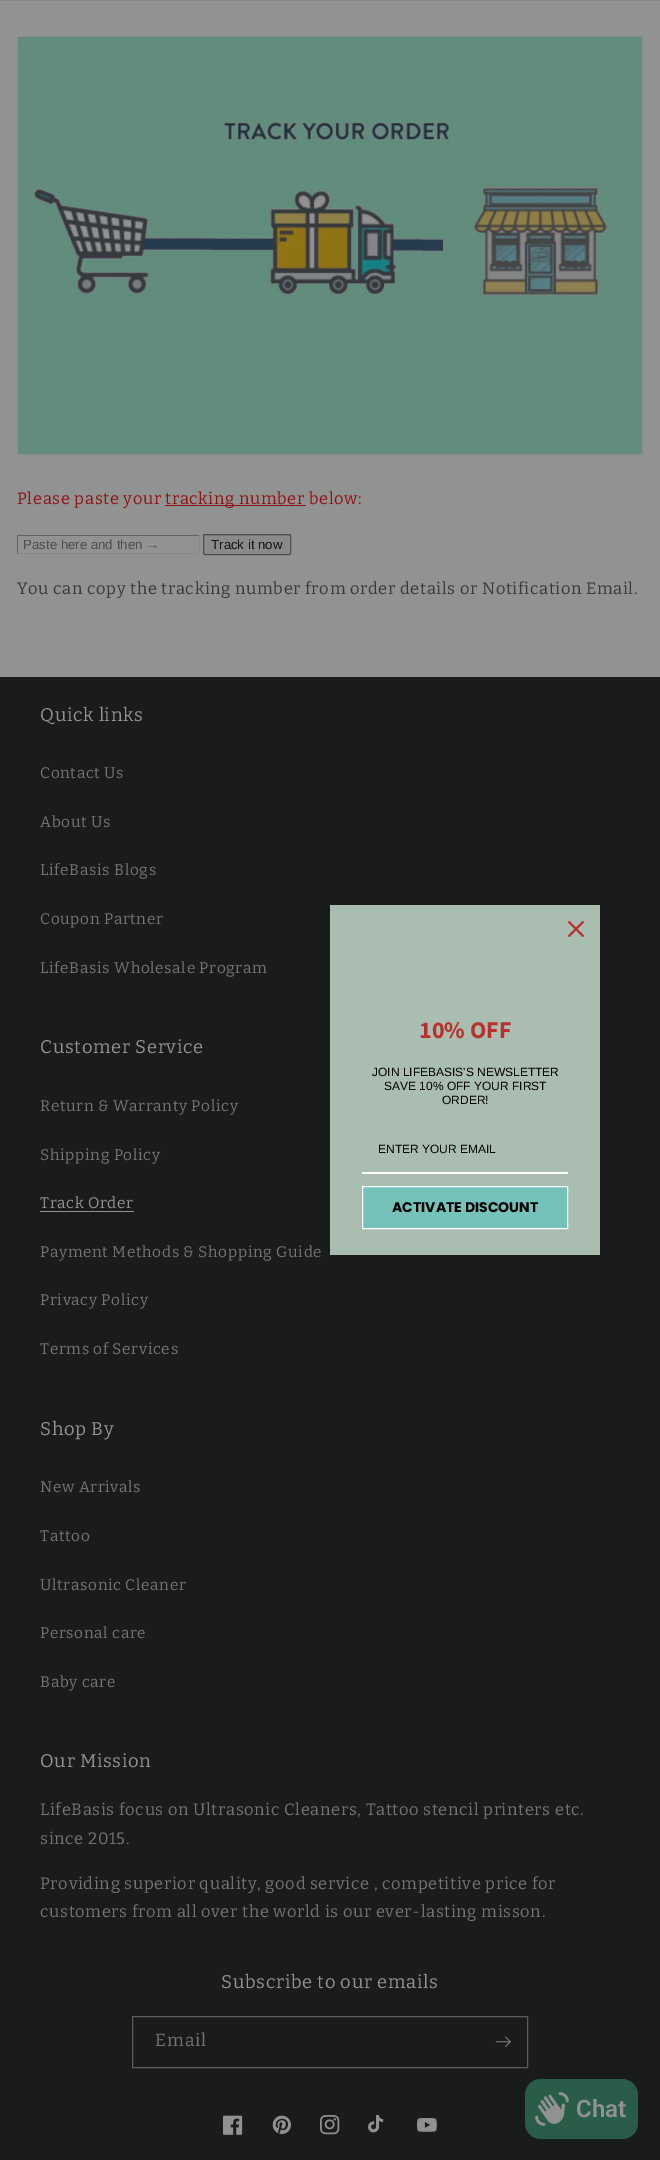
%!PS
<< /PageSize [660 2160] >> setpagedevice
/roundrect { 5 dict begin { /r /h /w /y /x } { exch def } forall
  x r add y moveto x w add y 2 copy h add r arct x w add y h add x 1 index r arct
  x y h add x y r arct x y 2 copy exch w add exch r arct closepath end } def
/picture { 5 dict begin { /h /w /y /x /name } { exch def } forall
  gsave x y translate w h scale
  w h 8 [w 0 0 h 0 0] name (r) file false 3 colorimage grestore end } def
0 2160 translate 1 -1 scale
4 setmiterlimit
0.569 0.573 0.573 setrgbcolor
0 0 660 2160 rectfill
0.529 0.533 0.533 setrgbcolor
0 0 660 1 rectfill
0.545 0.549 0.549 setrgbcolor
17.5 36.5 625 418 rectstroke
(img1.rgb) 18 37 624 417 picture
/Bitter-Regular [16.5 0 0 -16.5 0 0] selectfont
0.569 0.071 0.071 setrgbcolor
17 504 moveto 0.65 0 (Please paste your) ashow
165 505 141 1 rectfill
165 504 moveto 0.65 0 (tracking number below:) ashow
0.38 0.384 0.384 setrgbcolor
17 535 183 1 rectfill
0.533 0.537 0.537 setrgbcolor
199 535 1 19 rectfill
17 553 183 1 rectfill
0.38 0.384 0.384 setrgbcolor
17 535 1 19 rectfill
/LiberationSans-Regular [13.25 0 0 -13.25 0 0] selectfont
0.298 0.302 0.302 setrgbcolor
23 549 moveto (Paste here and then →) show
0.537 0.541 0.541 setrgbcolor
203.5 534.5 87 20 1.5 roundrect gsave fill grestore
0.298 0.302 0.302 setrgbcolor
stroke
0.067 0.071 0.071 setrgbcolor
211 549 moveto (Track it now) show
/Bitter-Regular [16.5 0 0 -16.5 0 0] selectfont
0.22 0.224 0.224 setrgbcolor
17 594 moveto 0.65 0 (You can copy the tracking number from order details or Notification Email.) ashow
0.102 0.106 0.106 setrgbcolor
0 677 660 1483 rectfill
/Bitter-Regular [18.4 0 0 -18.4 0 0] selectfont
0.569 0.573 0.573 setrgbcolor
40 721 moveto 0.7 0 (Quick links) ashow
/Bitter-Regular [15.4 0 0 -15.4 0 0] selectfont
0.451 0.455 0.455 setrgbcolor
40 778 moveto 0.65 0 (Contact Us) ashow
40 827 moveto 0.65 0 (About Us) ashow
40 875 moveto 0.65 0 (LifeBasis Blogs) ashow
40 924 moveto 0.65 0 (Coupon Partner) ashow
40 973 moveto 0.65 0 (LifeBasis Wholesale Program) ashow
/Bitter-Regular [18.4 0 0 -18.4 0 0] selectfont
0.569 0.573 0.573 setrgbcolor
40 1053 moveto 0.7 0 (Customer Service) ashow
/Bitter-Regular [15.4 0 0 -15.4 0 0] selectfont
0.451 0.455 0.455 setrgbcolor
40 1111 moveto 0.65 0 (Return & Warranty Policy) ashow
40 1160 moveto 0.65 0 (Shipping Policy) ashow
0.569 0.573 0.573 setrgbcolor
40 1208 moveto 0.65 0 (Track Order) ashow
40 1211 94 1 rectfill
0.451 0.455 0.455 setrgbcolor
40 1257 moveto 0.65 0 (Payment Methods & Shopping Guide) ashow
40 1305 moveto 0.65 0 (Privacy Policy) ashow
40 1354 moveto 0.65 0 (Terms of Services) ashow
/Bitter-Regular [18.4 0 0 -18.4 0 0] selectfont
0.569 0.573 0.573 setrgbcolor
40 1435 moveto 0.7 0 (Shop By) ashow
/Bitter-Regular [15.4 0 0 -15.4 0 0] selectfont
0.451 0.455 0.455 setrgbcolor
40 1492 moveto 0.65 0 (New Arrivals) ashow
40 1541 moveto 0.65 0 (Tattoo) ashow
40 1590 moveto 0.65 0 (Ultrasonic Cleaner) ashow
40 1638 moveto 0.65 0 (Personal care) ashow
40 1687 moveto 0.65 0 (Baby care) ashow
/Bitter-Regular [18.4 0 0 -18.4 0 0] selectfont
0.569 0.573 0.573 setrgbcolor
40 1767 moveto 0.7 0 (Our Mission) ashow
/Bitter-Regular [16.5 0 0 -16.5 0 0] selectfont
0.451 0.455 0.455 setrgbcolor
40 1815 moveto 0.65 0 (LifeBasis focus on Ultrasonic Cleaners, Tattoo stencil printers etc.) ashow
40 1844 moveto 0.65 0 (since 2015.) ashow
40 1889 moveto 0.65 0 (Providing superior quality, good service , competitive price for) ashow
40 1917 moveto 0.65 0 (customers from all over the world is our ever-lasting misson.) ashow
/Bitter-Regular [18.4 0 0 -18.4 0 0] selectfont
0.569 0.573 0.573 setrgbcolor
221 1988 moveto 0.7 0 (Subscribe to our emails) ashow
0.357 0.361 0.361 setrgbcolor
132.5 2016.5 395 51 rectstroke
/Bitter-Regular [17.5 0 0 -17.5 0 0] selectfont
0.451 0.455 0.455 setrgbcolor
155 2046 moveto 1 0 (Email) ashow
(img2.rgb) 495 2036 16 11 picture
(img3.rgb) 223 2115 20 20 picture
(img4.rgb) 272 2115 19 19 picture
(img5.rgb) 320 2115 20 20 picture
(img6.rgb) 368 2115 16 18 picture
(img7.rgb) 417 2118 20 14 picture
0.667 0.741 0.694 setrgbcolor
330 905 270 350 rectfill
(img8.rgb) 568 921 16 16 picture
/SourceSansPro-Bold [24 0 0 -24 0 0] selectfont
0.722 0.192 0.184 setrgbcolor
419 1038 moveto (10% OFF) show
/LiberationSans-Regular [12 0 0 -12 0 0] selectfont
0 setgray
372 1076 moveto (JOIN LIFEBASIS'S NEWSLETTER) show
384 1090 moveto (SAVE 10% OFF YOUR FIRST) show
442 1104 moveto (ORDER!) show
1 setgray
362 1172 206 2 rectfill
0 setgray
378 1153 moveto (ENTER YOUR EMAIL) show
0.455 0.761 0.725 setrgbcolor
newpath 362.5 1186.5 moveto 567.5 1186.5 lineto 567.5 1228.5 lineto 362.5 1228.5 lineto closepath gsave fill grestore
1 setgray
stroke
/Poppins-Bold [14 0 0 -14 0 0] selectfont
0 setgray
392 1212 moveto (ACTIVATE DISCOUNT) show
0.165 0.365 0.286 setrgbcolor
525 2079 113 60 16 roundrect fill
(img9.rgb) 535 2092 34 34 picture
/Roboto-SemiBold [24 0 0 -24 0 0] selectfont
0.569 0.573 0.573 setrgbcolor
576 2117 moveto (Chat) show
showpage
